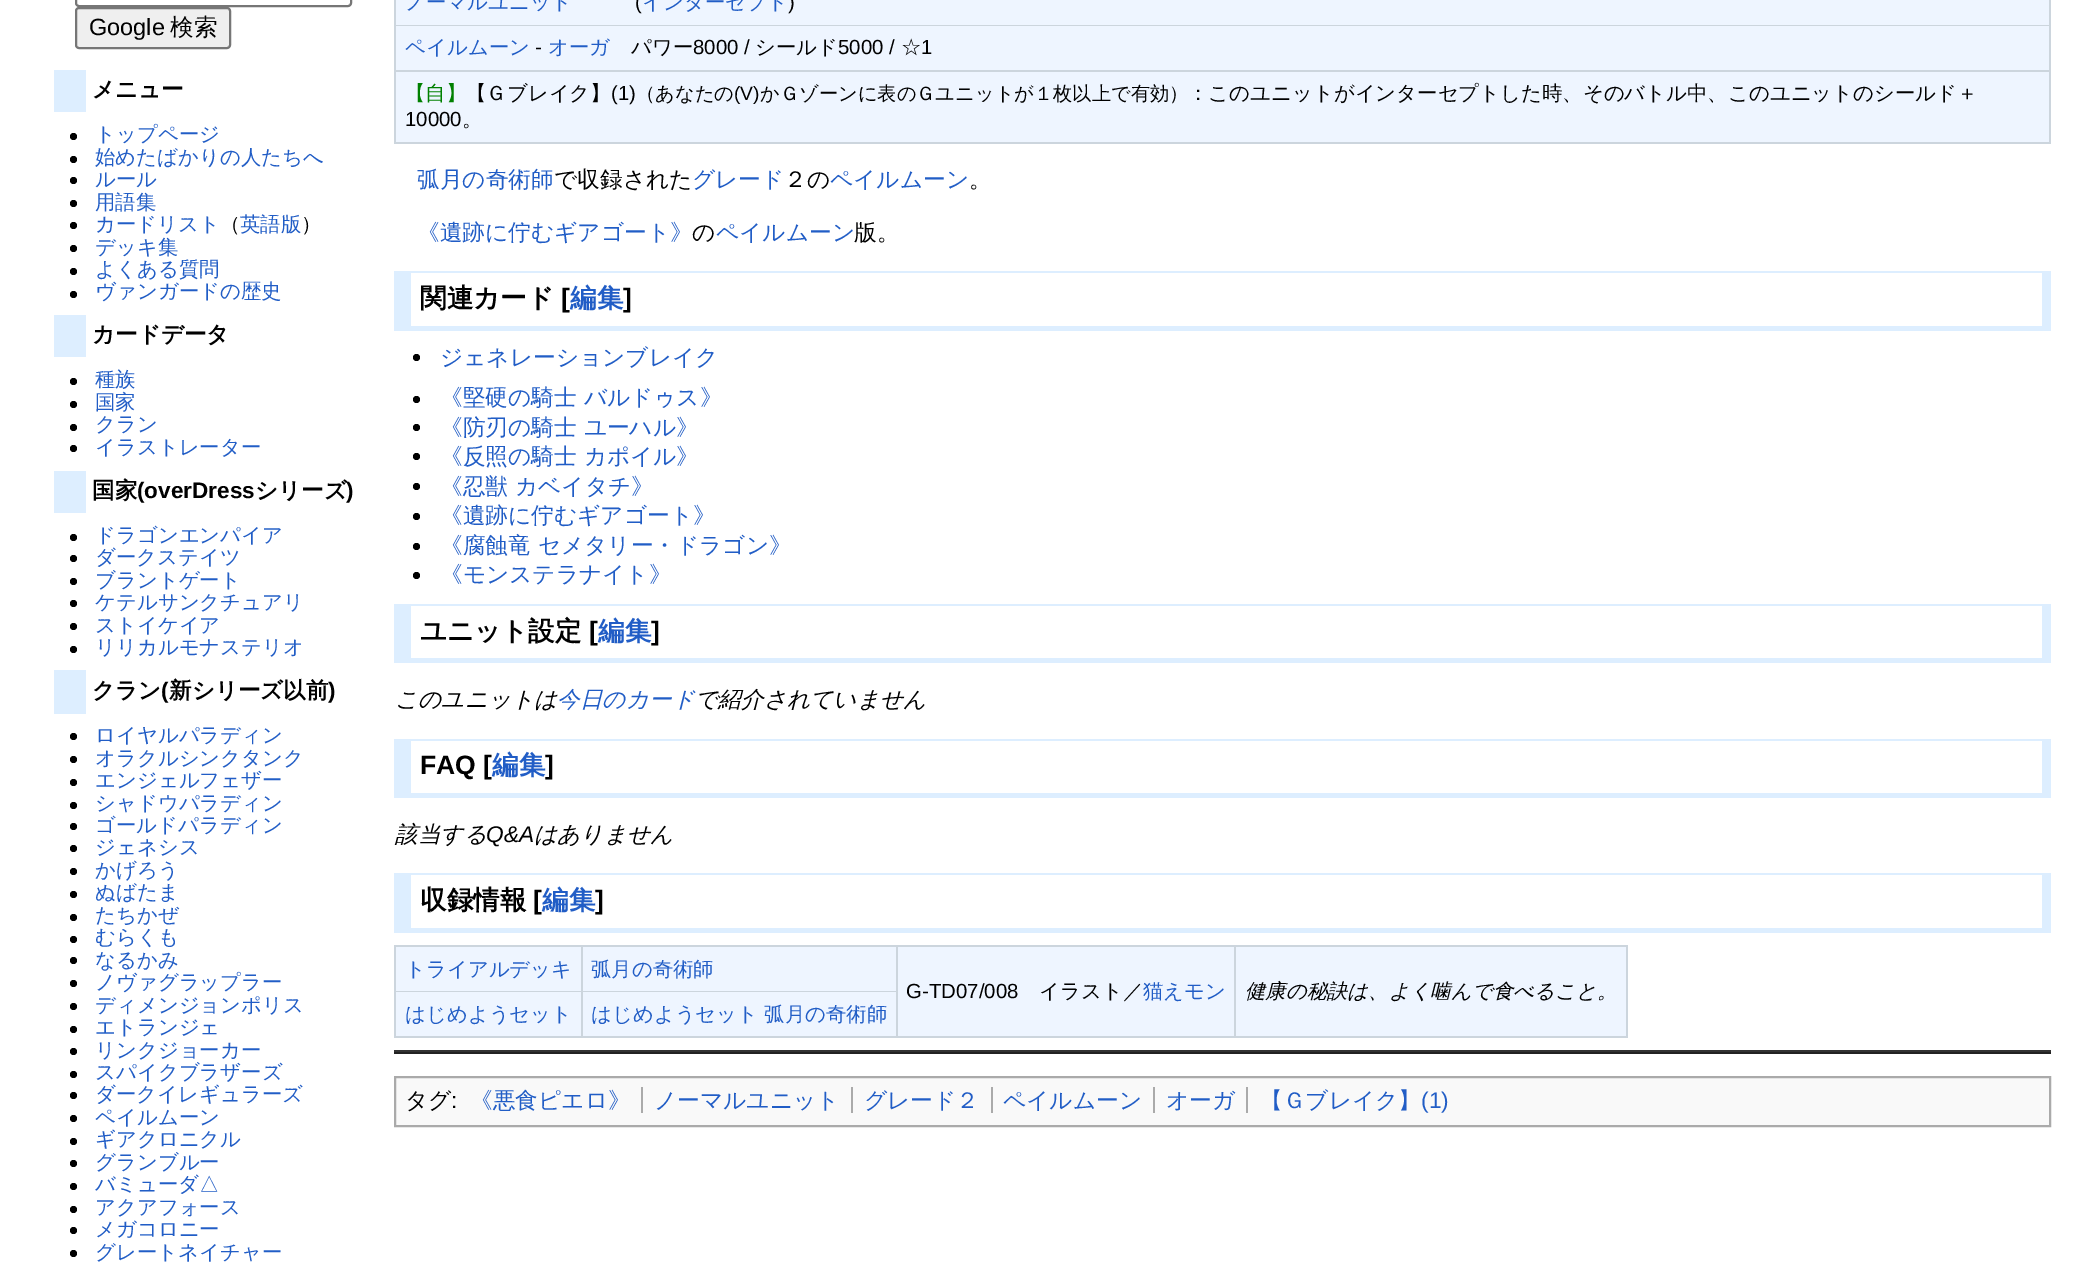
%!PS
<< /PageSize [2097 1266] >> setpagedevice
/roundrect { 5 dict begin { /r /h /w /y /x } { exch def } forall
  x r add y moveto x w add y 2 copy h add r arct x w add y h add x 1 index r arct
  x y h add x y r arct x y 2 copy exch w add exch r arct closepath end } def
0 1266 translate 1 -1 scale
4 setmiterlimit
1 setgray
0 0 2097 1266 rectfill
0.463 setgray
2 setlinewidth
76 -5 275 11 3 roundrect stroke
0.937 setgray
76 8 154 40 3 roundrect gsave fill grestore
0.463 setgray
stroke
/LiberationSans-Regular [23.5 0 0 -23.5 0 0] selectfont
0 setgray
89 35 moveto (Google) show
/WenQuanYiZenHei-Medium [23.5 0 0 -23.5 0 0] selectfont
170 35 moveto (検索) show
0.867 0.933 1 setrgbcolor
54 70 32 42 rectfill
/WenQuanYiZenHei-Bold [22.5 0 0 -22.5 0 0] selectfont
0 setgray
92 97 moveto (メニュー) show
newpath 73.5 136.5 3.5 0 360 arc closepath fill
/WenQuanYiZenHei-Medium [20.4 0 0 -20.4 0 0] selectfont
0.129 0.365 0.776 setrgbcolor
95 141 moveto (トップページ) show
0 setgray
newpath 73.5 159.5 3.5 0 360 arc closepath fill
0.129 0.365 0.776 setrgbcolor
95 164 moveto (始めたばかりの人たちへ) show
0 setgray
newpath 73.5 180.5 3.5 0 360 arc closepath fill
0.129 0.365 0.776 setrgbcolor
95 186 moveto (ルール) show
0 setgray
newpath 73.5 203.5 3.5 0 360 arc closepath fill
0.129 0.365 0.776 setrgbcolor
95 209 moveto (用語集) show
0 setgray
newpath 73.5 225.5 3.5 0 360 arc closepath fill
0.129 0.365 0.776 setrgbcolor
95 231 moveto (カードリスト) show
0 setgray
220 231 moveto (（) show
0.129 0.365 0.776 setrgbcolor
240 231 moveto (英語版) show
0 setgray
301 231 moveto (）) show
newpath 73.5 248.5 3.5 0 360 arc closepath fill
0.129 0.365 0.776 setrgbcolor
95 254 moveto (デッキ集) show
0 setgray
newpath 73.5 271.5 3.5 0 360 arc closepath fill
0.129 0.365 0.776 setrgbcolor
95 276 moveto (よくある質問) show
0 setgray
newpath 73.5 294.5 3.5 0 360 arc closepath fill
0.129 0.365 0.776 setrgbcolor
95 298 moveto (ヴァンガードの歴史) show
0.867 0.933 1 setrgbcolor
54 315 32 42 rectfill
/WenQuanYiZenHei-Bold [22.5 0 0 -22.5 0 0] selectfont
0 setgray
92 342 moveto (カードデータ) show
newpath 73.5 381.5 3.5 0 360 arc closepath fill
/WenQuanYiZenHei-Medium [20.4 0 0 -20.4 0 0] selectfont
0.129 0.365 0.776 setrgbcolor
95 386 moveto (種族) show
0 setgray
newpath 73.5 404.5 3.5 0 360 arc closepath fill
0.129 0.365 0.776 setrgbcolor
95 409 moveto (国家) show
0 setgray
newpath 73.5 427.5 3.5 0 360 arc closepath fill
0.129 0.365 0.776 setrgbcolor
95 431 moveto (クラン) show
0 setgray
newpath 73.5 448.5 3.5 0 360 arc closepath fill
0.129 0.365 0.776 setrgbcolor
95 454 moveto (イラストレーター) show
0.867 0.933 1 setrgbcolor
54 471 32 42 rectfill
/WenQuanYiZenHei-Bold [22.5 0 0 -22.5 0 0] selectfont
0 setgray
92 498 moveto (国家) show
/LiberationSans-Bold [22.5 0 0 -22.5 0 0] selectfont
137 498 moveto (\(overDress) show
/WenQuanYiZenHei-Bold [22.5 0 0 -22.5 0 0] selectfont
255 498 moveto (シリーズ) show
/LiberationSans-Bold [22.5 0 0 -22.5 0 0] selectfont
346 498 moveto (\)) show
newpath 73.5 537.5 3.5 0 360 arc closepath fill
/WenQuanYiZenHei-Medium [20.4 0 0 -20.4 0 0] selectfont
0.129 0.365 0.776 setrgbcolor
95 542 moveto (ドラゴンエンパイア) show
0 setgray
newpath 73.5 558.5 3.5 0 360 arc closepath fill
0.129 0.365 0.776 setrgbcolor
95 564 moveto (ダークステイツ) show
0 setgray
newpath 73.5 581.5 3.5 0 360 arc closepath fill
0.129 0.365 0.776 setrgbcolor
95 587 moveto (ブラントゲート) show
0 setgray
newpath 73.5 603.5 3.5 0 360 arc closepath fill
0.129 0.365 0.776 setrgbcolor
95 609 moveto (ケテルサンクチュアリ) show
0 setgray
newpath 73.5 626.5 3.5 0 360 arc closepath fill
0.129 0.365 0.776 setrgbcolor
95 632 moveto (ストイケイア) show
0 setgray
newpath 73.5 649.5 3.5 0 360 arc closepath fill
0.129 0.365 0.776 setrgbcolor
95 654 moveto (リリカルモナステリオ) show
0.867 0.933 1 setrgbcolor
54 670 32 44 rectfill
/WenQuanYiZenHei-Bold [22.5 0 0 -22.5 0 0] selectfont
0 setgray
92 698 moveto (クラン) show
/LiberationSans-Bold [22.5 0 0 -22.5 0 0] selectfont
161 698 moveto (\() show
/WenQuanYiZenHei-Bold [22.5 0 0 -22.5 0 0] selectfont
169 698 moveto (新シリーズ以前) show
/LiberationSans-Bold [22.5 0 0 -22.5 0 0] selectfont
328 698 moveto (\)) show
newpath 73.5 736.5 3.5 0 360 arc closepath fill
/WenQuanYiZenHei-Medium [20.4 0 0 -20.4 0 0] selectfont
0.129 0.365 0.776 setrgbcolor
95 742 moveto (ロイヤルパラディン) show
0 setgray
newpath 73.5 759.5 3.5 0 360 arc closepath fill
0.129 0.365 0.776 setrgbcolor
95 765 moveto (オラクルシンクタンク) show
0 setgray
newpath 73.5 782.5 3.5 0 360 arc closepath fill
0.129 0.365 0.776 setrgbcolor
95 787 moveto (エンジェルフェザー) show
0 setgray
newpath 73.5 805.5 3.5 0 360 arc closepath fill
0.129 0.365 0.776 setrgbcolor
95 810 moveto (シャドウパラディン) show
0 setgray
newpath 73.5 826.5 3.5 0 360 arc closepath fill
0.129 0.365 0.776 setrgbcolor
95 832 moveto (ゴールドパラディン) show
0 setgray
newpath 73.5 848.5 3.5 0 360 arc closepath fill
0.129 0.365 0.776 setrgbcolor
95 854 moveto (ジェネシス) show
0 setgray
newpath 73.5 871.5 3.5 0 360 arc closepath fill
0.129 0.365 0.776 setrgbcolor
95 877 moveto (かげろう) show
0 setgray
newpath 73.5 894.5 3.5 0 360 arc closepath fill
0.129 0.365 0.776 setrgbcolor
95 899 moveto (ぬばたま) show
0 setgray
newpath 73.5 917.5 3.5 0 360 arc closepath fill
0.129 0.365 0.776 setrgbcolor
95 922 moveto (たちかぜ) show
0 setgray
newpath 73.5 939.5 3.5 0 360 arc closepath fill
0.129 0.365 0.776 setrgbcolor
95 944 moveto (むらくも) show
0 setgray
newpath 73.5 960.5 3.5 0 360 arc closepath fill
0.129 0.365 0.776 setrgbcolor
95 967 moveto (なるかみ) show
0 setgray
newpath 73.5 983.5 3.5 0 360 arc closepath fill
0.129 0.365 0.776 setrgbcolor
95 989 moveto (ノヴァグラップラー) show
0 setgray
newpath 73.5 1006.5 3.5 0 360 arc closepath fill
0.129 0.365 0.776 setrgbcolor
95 1012 moveto (ディメンジョンポリス) show
0 setgray
newpath 73.5 1029.5 3.5 0 360 arc closepath fill
0.129 0.365 0.776 setrgbcolor
95 1034 moveto (エトランジェ) show
0 setgray
newpath 73.5 1051.5 3.5 0 360 arc closepath fill
0.129 0.365 0.776 setrgbcolor
95 1057 moveto (リンクジョーカー) show
0 setgray
newpath 73.5 1074.5 3.5 0 360 arc closepath fill
0.129 0.365 0.776 setrgbcolor
95 1079 moveto (スパイクブラザーズ) show
0 setgray
newpath 73.5 1095.5 3.5 0 360 arc closepath fill
0.129 0.365 0.776 setrgbcolor
95 1101 moveto (ダークイレギュラーズ) show
0 setgray
newpath 73.5 1118.5 3.5 0 360 arc closepath fill
0.129 0.365 0.776 setrgbcolor
95 1124 moveto (ペイルムーン) show
0 setgray
newpath 73.5 1141.5 3.5 0 360 arc closepath fill
0.129 0.365 0.776 setrgbcolor
95 1146 moveto (ギアクロニクル) show
0 setgray
newpath 73.5 1163.5 3.5 0 360 arc closepath fill
0.129 0.365 0.776 setrgbcolor
95 1169 moveto (グランブルー) show
0 setgray
newpath 73.5 1186.5 3.5 0 360 arc closepath fill
0.129 0.365 0.776 setrgbcolor
95 1191 moveto (バミューダ△) show
0 setgray
newpath 73.5 1209.5 3.5 0 360 arc closepath fill
0.129 0.365 0.776 setrgbcolor
95 1214 moveto (アクアフォース) show
0 setgray
newpath 73.5 1230.5 3.5 0 360 arc closepath fill
0.129 0.365 0.776 setrgbcolor
95 1236 moveto (メガコロニー) show
0 setgray
newpath 73.5 1253.5 3.5 0 360 arc closepath fill
0.129 0.365 0.776 setrgbcolor
95 1259 moveto (グレートネイチャー) show
0.8 0.835 0.867 setrgbcolor
394 0 1657 144 rectfill
0.933 0.961 1 setrgbcolor
396 0 1653 25 rectfill
0.129 0.365 0.776 setrgbcolor
405 9 moveto (ノーマルユニット) show
/LiberationSans-Regular [20.4 0 0 -20.4 0 0] selectfont
0 setgray
635 9 moveto (\() show
/WenQuanYiZenHei-Medium [20.4 0 0 -20.4 0 0] selectfont
0.129 0.365 0.776 setrgbcolor
642 9 moveto (インターセプト) show
/LiberationSans-Regular [20.4 0 0 -20.4 0 0] selectfont
0 setgray
788 9 moveto (\)) show
0.933 0.961 1 setrgbcolor
396 26 1653 44 rectfill
/WenQuanYiZenHei-Medium [20.4 0 0 -20.4 0 0] selectfont
0.129 0.365 0.776 setrgbcolor
405 54 moveto (ペイルムーン) show
/LiberationSans-Regular [20.4 0 0 -20.4 0 0] selectfont
0 setgray
535 54 moveto (-) show
/WenQuanYiZenHei-Medium [20.4 0 0 -20.4 0 0] selectfont
0.129 0.365 0.776 setrgbcolor
548 54 moveto (オーガ) show
0 setgray
631 54 moveto (パワー) show
/LiberationSans-Regular [20.4 0 0 -20.4 0 0] selectfont
693 54 moveto (8000 /) show
/WenQuanYiZenHei-Medium [20.4 0 0 -20.4 0 0] selectfont
755 54 moveto (シールド) show
/LiberationSans-Regular [20.4 0 0 -20.4 0 0] selectfont
838 54 moveto (5000 /) show
/WenQuanYiZenHei-Medium [20.4 0 0 -20.4 0 0] selectfont
901 54 moveto (☆) show
/LiberationSans-Regular [20.4 0 0 -20.4 0 0] selectfont
921 54 moveto (1) show
0.933 0.961 1 setrgbcolor
396 72 1653 70 rectfill
/WenQuanYiZenHei-Medium [20.4 0 0 -20.4 0 0] selectfont
0 0.502 0 setrgbcolor
405 100 moveto (【自】) show
0 setgray
466 100 moveto (【Ｇブレイク】) show
/LiberationSans-Regular [20.4 0 0 -20.4 0 0] selectfont
611 100 moveto (\(1\)) show
/WenQuanYiZenHei-Medium [19.25 0 0 -19.25 0 0] selectfont
636 100 moveto (（あなたの) show
/LiberationSans-Regular [19.25 0 0 -19.25 0 0] selectfont
734 100 moveto (\(V\)) show
/WenQuanYiZenHei-Medium [19.25 0 0 -19.25 0 0] selectfont
760 100 moveto (かＧゾーンに表のＧユニットが１枚以上で有効）) show
/WenQuanYiZenHei-Medium [20.4 0 0 -20.4 0 0] selectfont
1188 100 moveto (：このユニットがインターセプトした時、そのバトル中、このユニットのシールド＋) show
/LiberationSans-Regular [20.4 0 0 -20.4 0 0] selectfont
405 126 moveto (10000) show
/WenQuanYiZenHei-Medium [20.4 0 0 -20.4 0 0] selectfont
462 126 moveto (。) show
/WenQuanYiZenHei-Medium [22.7 0 0 -22.7 0 0] selectfont
0.129 0.365 0.776 setrgbcolor
417 187 moveto (弧月の奇術師) show
0 setgray
554 187 moveto (で収録された) show
0.129 0.365 0.776 setrgbcolor
692 187 moveto (グレード) show
0 setgray
784 187 moveto (２の) show
0.129 0.365 0.776 setrgbcolor
830 187 moveto (ペイルムーン) show
0 setgray
969 187 moveto (。) show
0.129 0.365 0.776 setrgbcolor
417 240 moveto (《遺跡に佇むギアゴート》) show
0 setgray
692 240 moveto (の) show
0.129 0.365 0.776 setrgbcolor
716 240 moveto (ペイルムーン) show
0 setgray
854 240 moveto (版。) show
0.867 0.933 1 setrgbcolor
411 271 1631 2 rectfill
2042 271 9 55 rectfill
411 326 1640 5 rectfill
394 271 17 60 rectfill
/WenQuanYiZenHei-Bold [26.5 0 0 -26.5 0 0] selectfont
0 setgray
420 307 moveto (関連カード) show
/LiberationSans-Bold [26.5 0 0 -26.5 0 0] selectfont
561 307 moveto ([) show
/WenQuanYiZenHei-Bold [26.5 0 0 -26.5 0 0] selectfont
0.129 0.365 0.776 setrgbcolor
570 307 moveto (編集) show
/LiberationSans-Bold [26.5 0 0 -26.5 0 0] selectfont
0 setgray
623 307 moveto (]) show
newpath 416.5 357.5 3.5 0 360 arc closepath fill
/WenQuanYiZenHei-Medium [22.7 0 0 -22.7 0 0] selectfont
0.129 0.365 0.776 setrgbcolor
440 365 moveto (ジェネレーションブレイク) show
0 setgray
newpath 416.5 399.5 3.5 0 360 arc closepath fill
0.129 0.365 0.776 setrgbcolor
440 405 moveto (《堅硬の騎士 バルドゥス》) show
0 setgray
newpath 416.5 427.5 3.5 0 360 arc closepath fill
0.129 0.365 0.776 setrgbcolor
440 435 moveto (《防刃の騎士 ユーハル》) show
0 setgray
newpath 416.5 456.5 3.5 0 360 arc closepath fill
0.129 0.365 0.776 setrgbcolor
440 464 moveto (《反照の騎士 カポイル》) show
0 setgray
newpath 416.5 486.5 3.5 0 360 arc closepath fill
0.129 0.365 0.776 setrgbcolor
440 494 moveto (《忍獣 カベイタチ》) show
0 setgray
newpath 416.5 516.5 3.5 0 360 arc closepath fill
0.129 0.365 0.776 setrgbcolor
440 523 moveto (《遺跡に佇むギアゴート》) show
0 setgray
newpath 416.5 546.5 3.5 0 360 arc closepath fill
0.129 0.365 0.776 setrgbcolor
440 553 moveto (《腐蝕竜 セメタリー・ドラゴン》) show
0 setgray
newpath 416.5 575.5 3.5 0 360 arc closepath fill
0.129 0.365 0.776 setrgbcolor
440 582 moveto (《モンステラナイト》) show
0.867 0.933 1 setrgbcolor
411 604 1631 2 rectfill
2042 604 9 54 rectfill
411 658 1640 5 rectfill
394 604 17 59 rectfill
/WenQuanYiZenHei-Bold [26.5 0 0 -26.5 0 0] selectfont
0 setgray
420 640 moveto (ユニット設定) show
/LiberationSans-Bold [26.5 0 0 -26.5 0 0] selectfont
589 640 moveto ([) show
/WenQuanYiZenHei-Bold [26.5 0 0 -26.5 0 0] selectfont
0.129 0.365 0.776 setrgbcolor
598 640 moveto (編集) show
/LiberationSans-Bold [26.5 0 0 -26.5 0 0] selectfont
0 setgray
651 640 moveto (]) show
/WenQuanYiZenHei-MediumItalic [22.7 0 0 -22.7 0 0] selectfont
395 707 moveto (このユニットは) show
0.129 0.365 0.776 setrgbcolor
557 707 moveto (今日のカード) show
0 setgray
695 707 moveto (で紹介されていません) show
0.867 0.933 1 setrgbcolor
411 739 1631 2 rectfill
2042 739 9 54 rectfill
411 793 1640 5 rectfill
394 739 17 59 rectfill
/LiberationSans-Bold [26.5 0 0 -26.5 0 0] selectfont
0 setgray
420 774 moveto (FAQ [) show
/WenQuanYiZenHei-Bold [26.5 0 0 -26.5 0 0] selectfont
0.129 0.365 0.776 setrgbcolor
492 774 moveto (編集) show
/LiberationSans-Bold [26.5 0 0 -26.5 0 0] selectfont
0 setgray
545 774 moveto (]) show
/WenQuanYiZenHei-MediumItalic [22.7 0 0 -22.7 0 0] selectfont
395 842 moveto (該当する) show
/LiberationSans-Italic [22.7 0 0 -22.7 0 0] selectfont
486 842 moveto (Q&A) show
/WenQuanYiZenHei-MediumItalic [22.7 0 0 -22.7 0 0] selectfont
534 842 moveto (はありません) show
0.867 0.933 1 setrgbcolor
411 873 1631 2 rectfill
2042 873 9 55 rectfill
411 928 1640 5 rectfill
394 873 17 60 rectfill
/WenQuanYiZenHei-Bold [26.5 0 0 -26.5 0 0] selectfont
0 setgray
420 909 moveto (収録情報) show
/LiberationSans-Bold [26.5 0 0 -26.5 0 0] selectfont
533 909 moveto ([) show
/WenQuanYiZenHei-Bold [26.5 0 0 -26.5 0 0] selectfont
0.129 0.365 0.776 setrgbcolor
542 909 moveto (編集) show
/LiberationSans-Bold [26.5 0 0 -26.5 0 0] selectfont
0 setgray
595 909 moveto (]) show
0.8 0.835 0.867 setrgbcolor
394 945 1234 93 rectfill
0.933 0.961 1 setrgbcolor
396 947 185 44 rectfill
/WenQuanYiZenHei-Medium [20.4 0 0 -20.4 0 0] selectfont
0.129 0.365 0.776 setrgbcolor
405 976 moveto (トライアルデッキ) show
0.933 0.961 1 setrgbcolor
583 947 313 44 rectfill
0.129 0.365 0.776 setrgbcolor
591 976 moveto (弧月の奇術師) show
0.933 0.961 1 setrgbcolor
898 947 336 89 rectfill
/LiberationSans-Regular [20.4 0 0 -20.4 0 0] selectfont
0 setgray
906 998 moveto (G-TD07/008) show
/WenQuanYiZenHei-Medium [20.4 0 0 -20.4 0 0] selectfont
1039 998 moveto (イラスト／) show
0.129 0.365 0.776 setrgbcolor
1143 998 moveto (猫えモン) show
0.933 0.961 1 setrgbcolor
1236 947 390 89 rectfill
/WenQuanYiZenHei-MediumItalic [20.4 0 0 -20.4 0 0] selectfont
0 setgray
1245 998 moveto (健康の秘訣は、よく噛んで食べること。) show
0.933 0.961 1 setrgbcolor
396 992 185 44 rectfill
/WenQuanYiZenHei-Medium [20.4 0 0 -20.4 0 0] selectfont
0.129 0.365 0.776 setrgbcolor
405 1021 moveto (はじめようセット) show
0.933 0.961 1 setrgbcolor
583 992 313 44 rectfill
0.129 0.365 0.776 setrgbcolor
591 1021 moveto (はじめようセット 弧月の奇術師) show
0.2 setgray
394 1050 1657 2 rectfill
0.133 setgray
394 1052 1657 2 rectfill
0.976 setgray
newpath 395 1077 moveto 2050 1077 lineto 2050 1126 lineto 395 1126 lineto closepath gsave fill grestore
0.667 setgray
stroke
/WenQuanYiZenHei-Medium [22.7 0 0 -22.7 0 0] selectfont
0 setgray
405 1108 moveto (タグ) show
/LiberationSans-Regular [22.7 0 0 -22.7 0 0] selectfont
451 1108 moveto (:) show
/WenQuanYiZenHei-Medium [22.7 0 0 -22.7 0 0] selectfont
0.129 0.365 0.776 setrgbcolor
470 1108 moveto (《悪食ピエロ》) show
654 1108 moveto (ノーマルユニット) show
0.667 setgray
641 1087 2 26 rectfill
0.129 0.365 0.776 setrgbcolor
864 1108 moveto (グレード２) show
0.667 setgray
851 1087 2 26 rectfill
0.129 0.365 0.776 setrgbcolor
1003 1108 moveto (ペイルムーン) show
0.667 setgray
991 1087 2 26 rectfill
0.129 0.365 0.776 setrgbcolor
1166 1108 moveto (オーガ) show
0.667 setgray
1153 1087 2 26 rectfill
1246 1087 2 26 rectfill
0.129 0.365 0.776 setrgbcolor
1260 1108 moveto (【Ｇブレイク】) show
/LiberationSans-Regular [22.7 0 0 -22.7 0 0] selectfont
1421 1108 moveto (\(1\)) show
showpage
